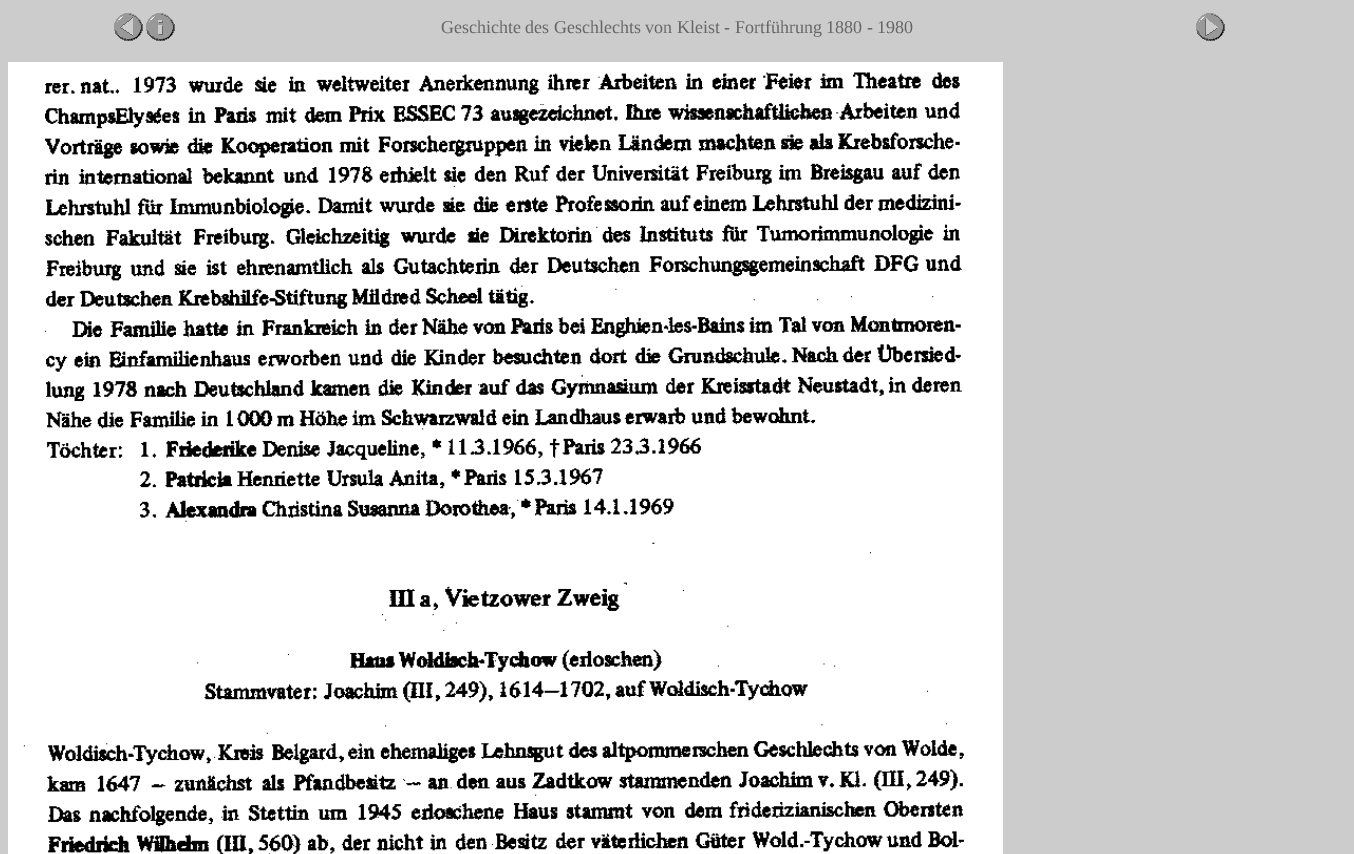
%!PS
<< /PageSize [1354 854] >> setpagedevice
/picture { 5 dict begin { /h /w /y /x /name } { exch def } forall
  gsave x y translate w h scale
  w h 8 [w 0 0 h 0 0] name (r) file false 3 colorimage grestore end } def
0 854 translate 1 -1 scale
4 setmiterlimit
0.8 setgray
0 0 1354 854 rectfill
(img1.rgb) 114 13 29 28 picture
(img2.rgb) 146 13 29 28 picture
/LiberationSerif-Regular [18 0 0 -18 0 0] selectfont
0.4 setgray
441 33 moveto (Geschichte des Geschlechts von Kleist - Fortführung 1880 - 1980) show
(img3.rgb) 1196 13 29 28 picture
(img4.rgb) 8 62 995 792 picture
showpage
